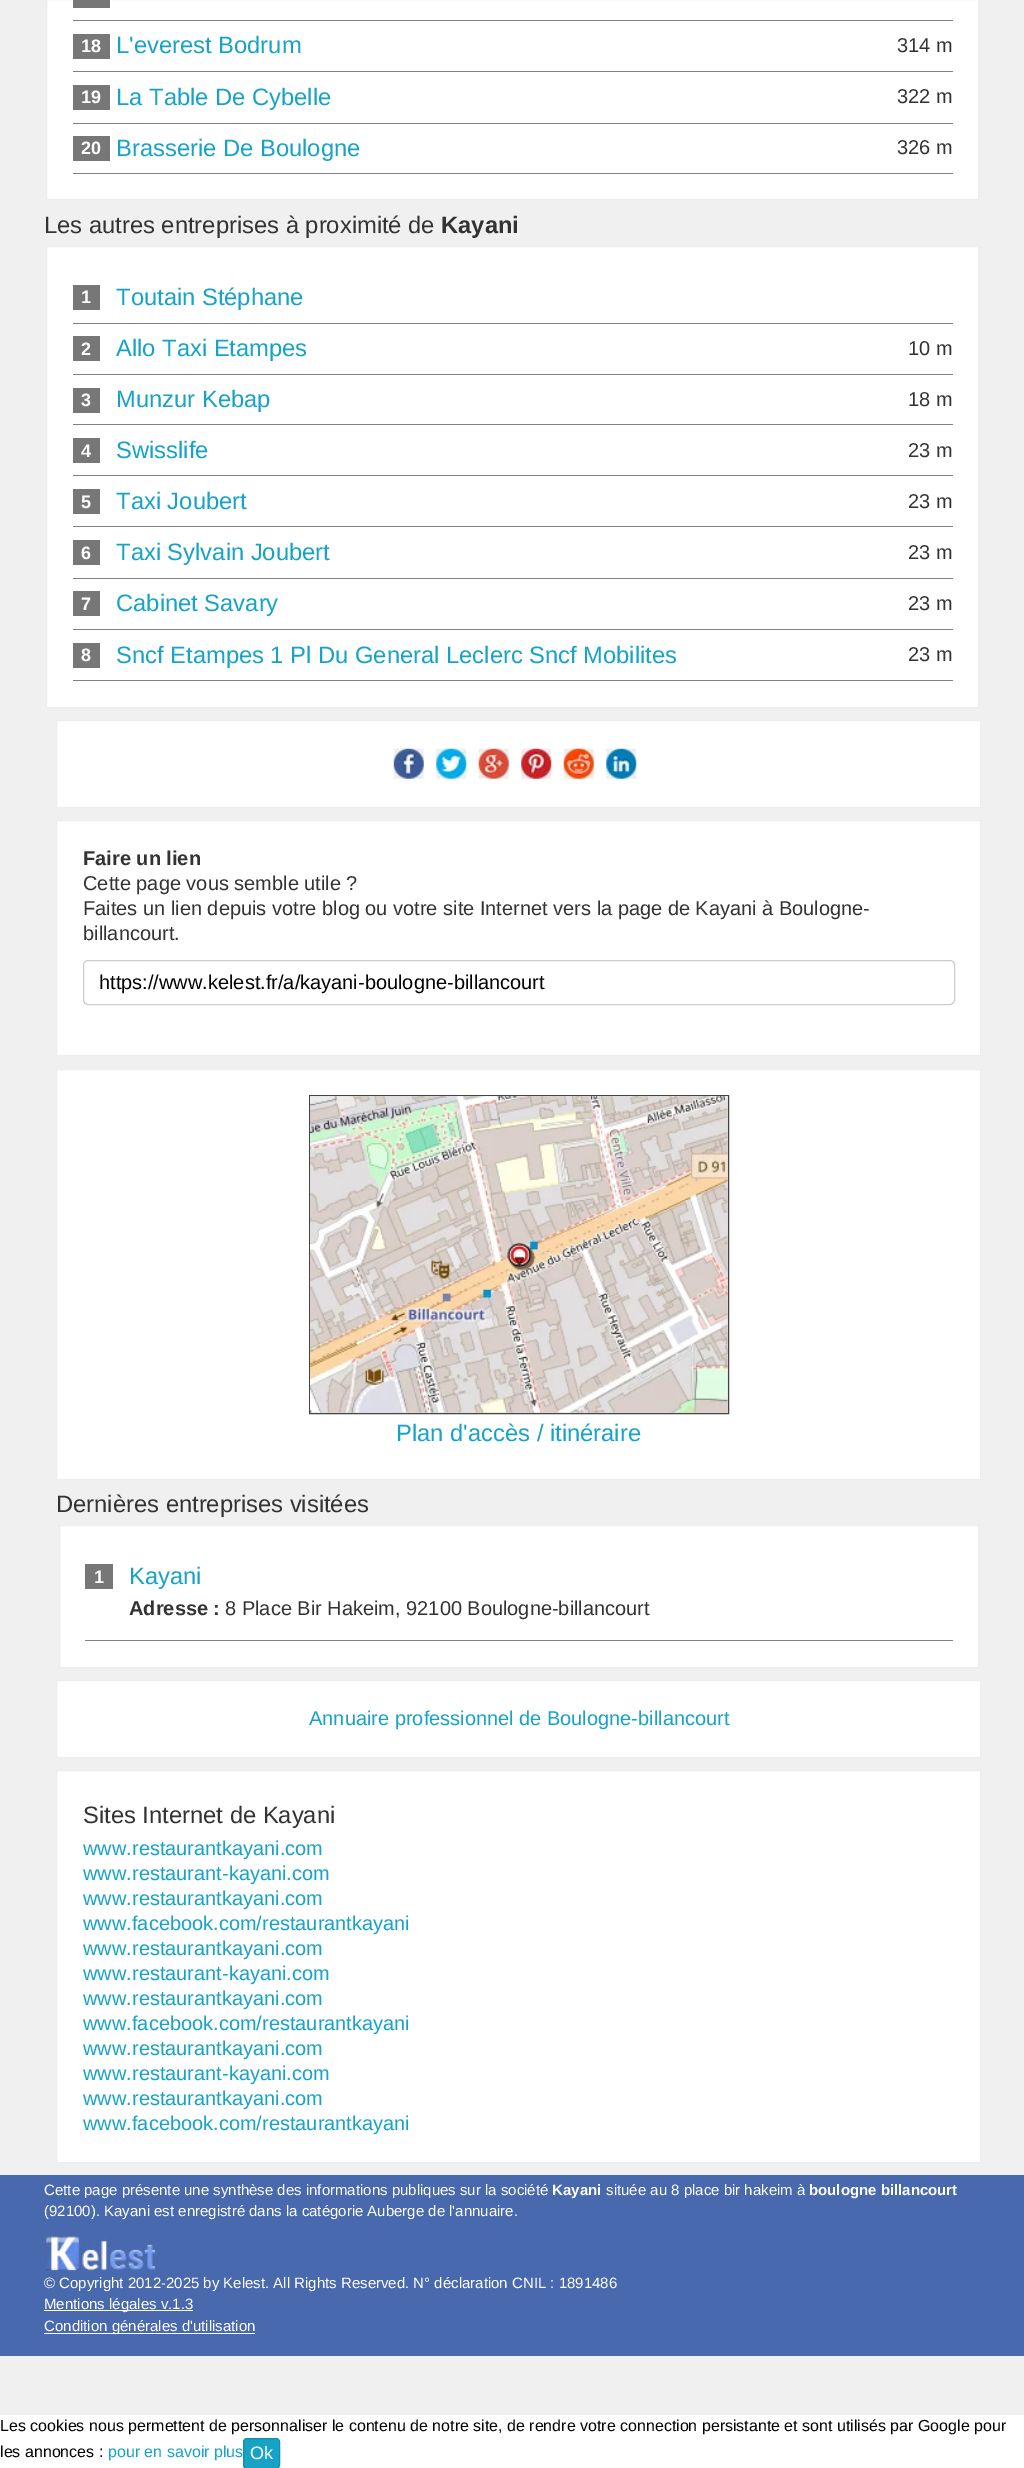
%!PS
<< /PageSize [1024 2468] >> setpagedevice
/roundrect { 5 dict begin { /r /h /w /y /x } { exch def } forall
  x r add y moveto x w add y 2 copy h add r arct x w add y h add x 1 index r arct
  x y h add x y r arct x y 2 copy exch w add exch r arct closepath end } def
/picture { 5 dict begin { /h /w /y /x /name } { exch def } forall
  gsave x y translate w h scale
  w h 8 [w 0 0 h 0 0] name (r) file false 3 colorimage grestore end } def
0 2468 translate 1 -1 scale
4 setmiterlimit
0.941 setgray
0 0 1024 2468 rectfill
1 setgray
newpath 46.5 -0.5 moveto 978.5 -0.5 lineto 978.5 199.5 lineto 46.5 199.5 lineto closepath gsave fill grestore
0.929 setgray
stroke
0.502 setgray
73 20 880 1 rectfill
0.467 setgray
73 0 37 8 rectfill
0.502 setgray
73 71 880 1 rectfill
0.467 setgray
73 34 37 25 rectfill
/LiberationSans-Bold [18 0 0 -18 0 0] selectfont
1 setgray
81 52 moveto (18) show
/LiberationSans-Regular [23.75 0 0 -23.75 0 0] selectfont
0.086 0.639 0.773 setrgbcolor
116 53 moveto (L'everest Bodrum) show
/LiberationSans-Regular [20 0 0 -20 0 0] selectfont
0.2 setgray
897 52 moveto (314 m) show
0.502 setgray
73 123 880 1 rectfill
0.467 setgray
73 85 37 25 rectfill
/LiberationSans-Bold [18 0 0 -18 0 0] selectfont
1 setgray
81 103 moveto (19) show
/LiberationSans-Regular [23.75 0 0 -23.75 0 0] selectfont
0.086 0.639 0.773 setrgbcolor
116 105 moveto (La Table De Cybelle) show
/LiberationSans-Regular [20 0 0 -20 0 0] selectfont
0.2 setgray
897 103 moveto (322 m) show
0.502 setgray
73 173 880 1 rectfill
0.467 setgray
73 136 37 25 rectfill
/LiberationSans-Bold [18 0 0 -18 0 0] selectfont
1 setgray
81 154 moveto (20) show
/LiberationSans-Regular [23.75 0 0 -23.75 0 0] selectfont
0.086 0.639 0.773 setrgbcolor
116 156 moveto (Brasserie De Boulogne) show
/LiberationSans-Regular [20 0 0 -20 0 0] selectfont
0.2 setgray
897 154 moveto (326 m) show
/LiberationSans-Regular [23.75 0 0 -23.75 0 0] selectfont
44 233 moveto (Les autres entreprises à proximité de) show
/LiberationSans-Bold [23.75 0 0 -23.75 0 0] selectfont
441 233 moveto (Kayani) show
1 setgray
newpath 46.5 246.5 moveto 978.5 246.5 lineto 978.5 707.5 lineto 46.5 707.5 lineto closepath gsave fill grestore
0.929 setgray
stroke
0.502 setgray
73 323 880 1 rectfill
0.467 setgray
73 285 27 25 rectfill
/LiberationSans-Bold [18 0 0 -18 0 0] selectfont
1 setgray
81 303 moveto (1) show
/LiberationSans-Regular [23.75 0 0 -23.75 0 0] selectfont
0.086 0.639 0.773 setrgbcolor
116 305 moveto (Toutain Stéphane) show
0.502 setgray
73 374 880 1 rectfill
0.467 setgray
73 336 27 25 rectfill
/LiberationSans-Bold [18 0 0 -18 0 0] selectfont
1 setgray
81 355 moveto (2) show
/LiberationSans-Regular [23.75 0 0 -23.75 0 0] selectfont
0.086 0.639 0.773 setrgbcolor
116 356 moveto (Allo Taxi Etampes) show
/LiberationSans-Regular [20 0 0 -20 0 0] selectfont
0.2 setgray
908 355 moveto (10 m) show
0.502 setgray
73 424 880 1 rectfill
0.467 setgray
73 388 27 25 rectfill
/LiberationSans-Bold [18 0 0 -18 0 0] selectfont
1 setgray
81 406 moveto (3) show
/LiberationSans-Regular [23.75 0 0 -23.75 0 0] selectfont
0.086 0.639 0.773 setrgbcolor
116 407 moveto (Munzur Kebap) show
/LiberationSans-Regular [20 0 0 -20 0 0] selectfont
0.2 setgray
908 406 moveto (18 m) show
0.502 setgray
73 475 880 1 rectfill
0.467 setgray
73 438 27 25 rectfill
/LiberationSans-Bold [18 0 0 -18 0 0] selectfont
1 setgray
81 457 moveto (4) show
/LiberationSans-Regular [23.75 0 0 -23.75 0 0] selectfont
0.086 0.639 0.773 setrgbcolor
116 458 moveto (Swisslife) show
/LiberationSans-Regular [20 0 0 -20 0 0] selectfont
0.2 setgray
908 457 moveto (23 m) show
0.502 setgray
73 526 880 1 rectfill
0.467 setgray
73 489 27 25 rectfill
/LiberationSans-Bold [18 0 0 -18 0 0] selectfont
1 setgray
81 508 moveto (5) show
/LiberationSans-Regular [23.75 0 0 -23.75 0 0] selectfont
0.086 0.639 0.773 setrgbcolor
116 509 moveto (Taxi Joubert) show
/LiberationSans-Regular [20 0 0 -20 0 0] selectfont
0.2 setgray
908 508 moveto (23 m) show
0.502 setgray
73 578 880 1 rectfill
0.467 setgray
73 540 27 25 rectfill
/LiberationSans-Bold [18 0 0 -18 0 0] selectfont
1 setgray
81 559 moveto (6) show
/LiberationSans-Regular [23.75 0 0 -23.75 0 0] selectfont
0.086 0.639 0.773 setrgbcolor
116 560 moveto (Taxi Sylvain Joubert) show
/LiberationSans-Regular [20 0 0 -20 0 0] selectfont
0.2 setgray
908 559 moveto (23 m) show
0.502 setgray
73 629 880 1 rectfill
0.467 setgray
73 591 27 25 rectfill
/LiberationSans-Bold [18 0 0 -18 0 0] selectfont
1 setgray
81 610 moveto (7) show
/LiberationSans-Regular [23.75 0 0 -23.75 0 0] selectfont
0.086 0.639 0.773 setrgbcolor
116 611 moveto (Cabinet Savary) show
/LiberationSans-Regular [20 0 0 -20 0 0] selectfont
0.2 setgray
908 610 moveto (23 m) show
0.502 setgray
73 680 880 1 rectfill
0.467 setgray
73 643 27 25 rectfill
/LiberationSans-Bold [18 0 0 -18 0 0] selectfont
1 setgray
81 661 moveto (8) show
/LiberationSans-Regular [23.75 0 0 -23.75 0 0] selectfont
0.086 0.639 0.773 setrgbcolor
116 663 moveto (Sncf Etampes 1 Pl Du General Leclerc Sncf Mobilites) show
/LiberationSans-Regular [20 0 0 -20 0 0] selectfont
0.2 setgray
908 661 moveto (23 m) show
1 setgray
newpath 56.5 720.5 moveto 980.5 720.5 lineto 980.5 807.5 lineto 56.5 807.5 lineto closepath gsave fill grestore
0.929 setgray
stroke
(img1.rgb) 393 748 31 31 picture
(img2.rgb) 436 748 31 31 picture
(img3.rgb) 478 748 31 31 picture
(img4.rgb) 521 748 31 31 picture
(img5.rgb) 563 748 31 31 picture
(img6.rgb) 606 748 31 31 picture
1 setgray
newpath 56.5 820.5 moveto 980.5 820.5 lineto 980.5 1055.5 lineto 56.5 1055.5 lineto closepath gsave fill grestore
0.929 setgray
stroke
/LiberationSans-Bold [20 0 0 -20 0 0] selectfont
0.2 setgray
83 865 moveto (Faire un lien) show
/LiberationSans-Regular [20 0 0 -20 0 0] selectfont
83 890 moveto (Cette page vous semble utile ?) show
83 915 moveto (Faites un lien depuis votre blog ou votre site Internet vers la page de Kayani à Boulogne-) show
83 940 moveto (billancourt.) show
0.8 setgray
83.5 960.5 871 44 4.5 roundrect stroke
0 setgray
99 989 moveto (https://www.kelest.fr/a/kayani-boulogne-billancourt) show
1 setgray
newpath 56.5 1069.5 moveto 980.5 1069.5 lineto 980.5 1479.5 lineto 56.5 1479.5 lineto closepath gsave fill grestore
0.929 setgray
stroke
0.863 setgray
newpath 309.5 1095.5 moveto 728.5 1095.5 lineto 728.5 1413.5 lineto 309.5 1413.5 lineto closepath gsave fill grestore
0.271 setgray
stroke
(img7.rgb) 310 1096 418 317 picture
/LiberationSans-Regular [23.75 0 0 -23.75 0 0] selectfont
0.086 0.639 0.773 setrgbcolor
396 1441 moveto (Plan d'accès / itinéraire) show
0.2 setgray
56 1512 moveto (Dernières entreprises visitées) show
1 setgray
newpath 59.5 1525.5 moveto 978.5 1525.5 lineto 978.5 1667.5 lineto 59.5 1667.5 lineto closepath gsave fill grestore
0.929 setgray
stroke
0.502 setgray
85 1640 868 1 rectfill
0.467 setgray
85 1564 28 25 rectfill
/LiberationSans-Bold [18 0 0 -18 0 0] selectfont
1 setgray
94 1583 moveto (1) show
/LiberationSans-Regular [23.75 0 0 -23.75 0 0] selectfont
0.086 0.639 0.773 setrgbcolor
129 1584 moveto (Kayani) show
/LiberationSans-Bold [20 0 0 -20 0 0] selectfont
0.2 setgray
129 1615 moveto (Adresse :) show
/LiberationSans-Regular [20 0 0 -20 0 0] selectfont
225 1615 moveto (8 Place Bir Hakeim, 92100 Boulogne-billancourt) show
1 setgray
newpath 56.5 1680.5 moveto 980.5 1680.5 lineto 980.5 1757.5 lineto 56.5 1757.5 lineto closepath gsave fill grestore
0.929 setgray
stroke
0.086 0.639 0.773 setrgbcolor
309 1725 moveto (Annuaire professionnel de Boulogne-billancourt) show
1 setgray
newpath 56.5 1770.5 moveto 980.5 1770.5 lineto 980.5 2162.5 lineto 56.5 2162.5 lineto closepath gsave fill grestore
0.929 setgray
stroke
/LiberationSans-Regular [23.75 0 0 -23.75 0 0] selectfont
0.2 setgray
83 1823 moveto (Sites Internet de Kayani) show
/LiberationSans-Regular [20 0 0 -20 0 0] selectfont
0.086 0.639 0.773 setrgbcolor
83 1855 moveto (www.restaurantkayani.com) show
83 1880 moveto (www.restaurant-kayani.com) show
83 1905 moveto (www.restaurantkayani.com) show
83 1930 moveto (www.facebook.com/restaurantkayani) show
83 1955 moveto (www.restaurantkayani.com) show
83 1980 moveto (www.restaurant-kayani.com) show
83 2005 moveto (www.restaurantkayani.com) show
83 2030 moveto (www.facebook.com/restaurantkayani) show
83 2055 moveto (www.restaurantkayani.com) show
83 2080 moveto (www.restaurant-kayani.com) show
83 2105 moveto (www.restaurantkayani.com) show
83 2130 moveto (www.facebook.com/restaurantkayani) show
0.286 0.412 0.686 setrgbcolor
0 2175 1024 181 rectfill
/LiberationSans-Regular [15 0 0 -15 0 0] selectfont
1 setgray
44 2195 moveto (Cette page présente une synthèse des informations publiques sur la société) show
/LiberationSans-Bold [15 0 0 -15 0 0] selectfont
552 2195 moveto (Kayani) show
/LiberationSans-Regular [15 0 0 -15 0 0] selectfont
606 2195 moveto (située au 8 place bir hakeim à) show
/LiberationSans-Bold [15 0 0 -15 0 0] selectfont
809 2195 moveto (boulogne billancourt) show
/LiberationSans-Regular [15 0 0 -15 0 0] selectfont
44 2216 moveto (\(92100\). Kayani est enregistré dans la catégorie Auberge de l'annuaire.) show
(img8.rgb) 43 2236 115 36 picture
44 2288 moveto (© Copyright 2012-2025 by Kelest. All Rights Reserved. N° déclaration CNIL : 1891486) show
44 2310 149 1 rectfill
44 2309 moveto (Mentions légales v.1.3) show
44 2333 211 1 rectfill
44 2331 moveto (Condition générales d'utilisation) show
0 2415 1024 53 rectfill
/LiberationSans-Regular [16 0 0 -16 0 0] selectfont
0 setgray
0 2431 moveto (Les cookies nous permettent de personnaliser le contenu de notre site, de rendre votre connection persistante et sont utilisés par Google pour) show
0 2457 moveto (les annonces :) show
0.086 0.639 0.773 setrgbcolor
108 2457 moveto (pour en savoir plus) show
243.5 2438.5 36 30 3.5 roundrect gsave fill grestore
0.075 0.565 0.682 setrgbcolor
stroke
/LiberationSans-Regular [18 0 0 -18 0 0] selectfont
1 setgray
250 2459 moveto (Ok) show
showpage
